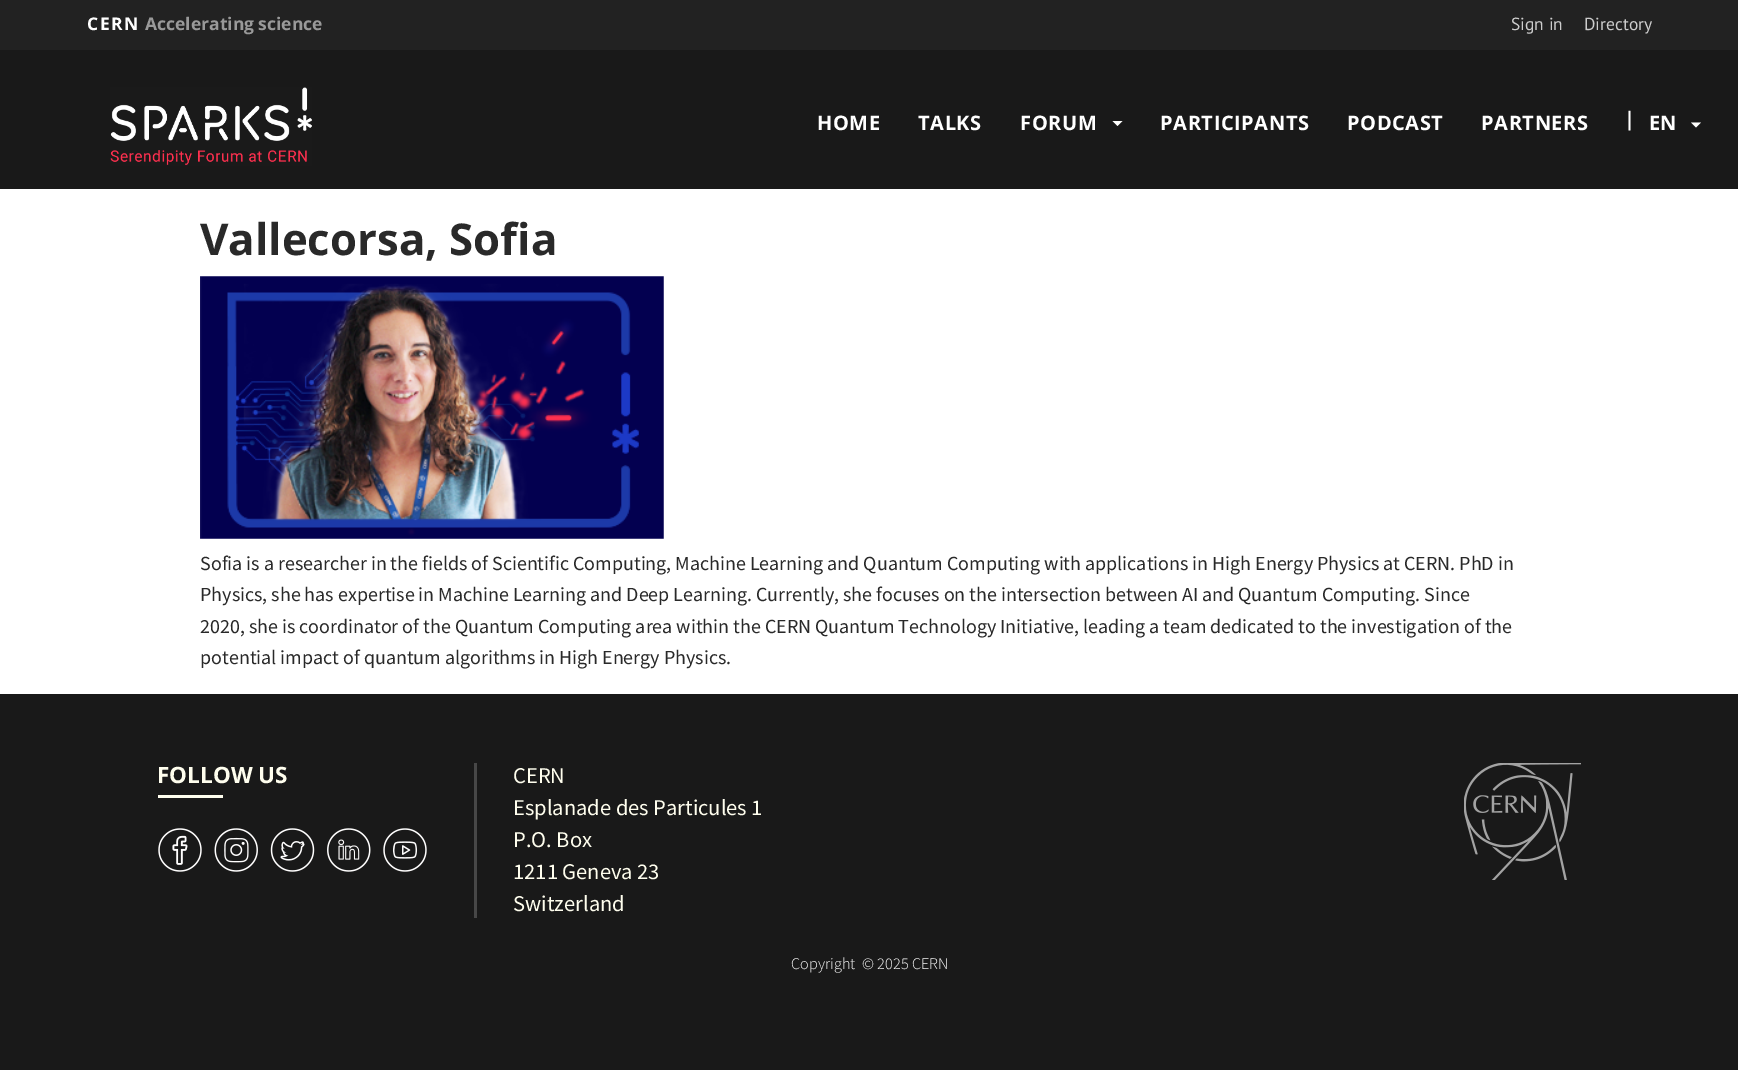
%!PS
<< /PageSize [1738 1070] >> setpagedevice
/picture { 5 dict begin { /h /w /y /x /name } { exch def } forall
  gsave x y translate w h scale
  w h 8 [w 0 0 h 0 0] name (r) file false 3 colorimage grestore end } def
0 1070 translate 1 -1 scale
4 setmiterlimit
0.098 setgray
0 0 1738 1070 rectfill
0.133 setgray
0 0 1738 50 rectfill
/OpenSans-Bold [17.5 0 0 -17.5 0 0] selectfont
1 setgray
87 30 moveto 1.5 0 (CERN) ashow
0.6 setgray
145 30 moveto (Accelerating science) show
/PTSans-Regular [17.5 0 0 -17.5 0 0] selectfont
0.8 setgray
1511 30 moveto (Sign in) show
1584 30 moveto (Directory) show
(img1.rgb) 110 87 202 79 picture
/OpenSans-Bold [20 0 0 -20 0 0] selectfont
1 setgray
817 130 moveto 0.6 0 (HOME) ashow
918 130 moveto 0.6 0 (TALKS) ashow
1020 130 moveto 0.6 0 (FORUM) ashow
1 1 0.996 setrgbcolor
newpath 1112.5 121 moveto 1122.5 121 lineto 1117.5 126 lineto closepath fill
1 setgray
1160 130 moveto 0.6 0 (PARTICIPANTS) ashow
1347 130 moveto 0.6 0 (PODCAST) ashow
1481 130 moveto 0.6 0 (PARTNERS) ashow
1624 126 moveto (|) show
1649 130 moveto (EN) show
1 1 0.996 setrgbcolor
newpath 1691 122.5 moveto 1701 122.5 lineto 1696 127.5 lineto closepath fill
1 setgray
0 189 1738 505 rectfill
/OpenSans-Bold [43.75 0 0 -43.75 0 0] selectfont
0.161 setgray
200 255 moveto (Vallecorsa, Sofia) show
(img2.rgb) 200 276 464 263 picture
/SourceSansPro-Regular [20 0 0 -20 0 0] selectfont
200 570 moveto (Sofia is a researcher in the fields of Scientific Computing, Machine Learning and Quantum Computing with applications in High Energy Physics at CERN. PhD in) show
200 601 moveto (Physics, she has expertise in Machine Learning and Deep Learning. Currently, she focuses on the intersection between AI and Quantum Computing. Since) show
200 633 moveto (2020, she is coordinator of the Quantum Computing area within the CERN Quantum Technology Initiative, leading a team dedicated to the investigation of the) show
200 664 moveto (potential impact of quantum algorithms in High Energy Physics.) show
/OpenSans-Bold [22.5 0 0 -22.5 0 0] selectfont
1 0.996 0.933 setrgbcolor
157 783 moveto (FOLLOW US) show
158 795 65 3 rectfill
(img3.rgb) 158 828 44 44 picture
(img4.rgb) 214 828 44 44 picture
(img5.rgb) 270 828 45 44 picture
(img6.rgb) 327 828 44 44 picture
(img7.rgb) 383 828 44 44 picture
0.278 setgray
474 763 3 155 rectfill
/SourceSansPro-Regular [22.5 0 0 -22.5 0 0] selectfont
1 0.996 0.933 setrgbcolor
513 783 moveto (CERN) show
513 815 moveto (Esplanade des Particules 1) show
513 847 moveto (P.O. Box) show
513 879 moveto (1211 Geneva 23) show
513 911 moveto (Switzerland) show
(img8.rgb) 1464 763 117 117 picture
/SourceSansPro-Light [16.25 0 0 -16.25 0 0] selectfont
0.973 setgray
791 969 moveto (Copyright) show
862 969 moveto (© 2025 CERN) show
showpage
